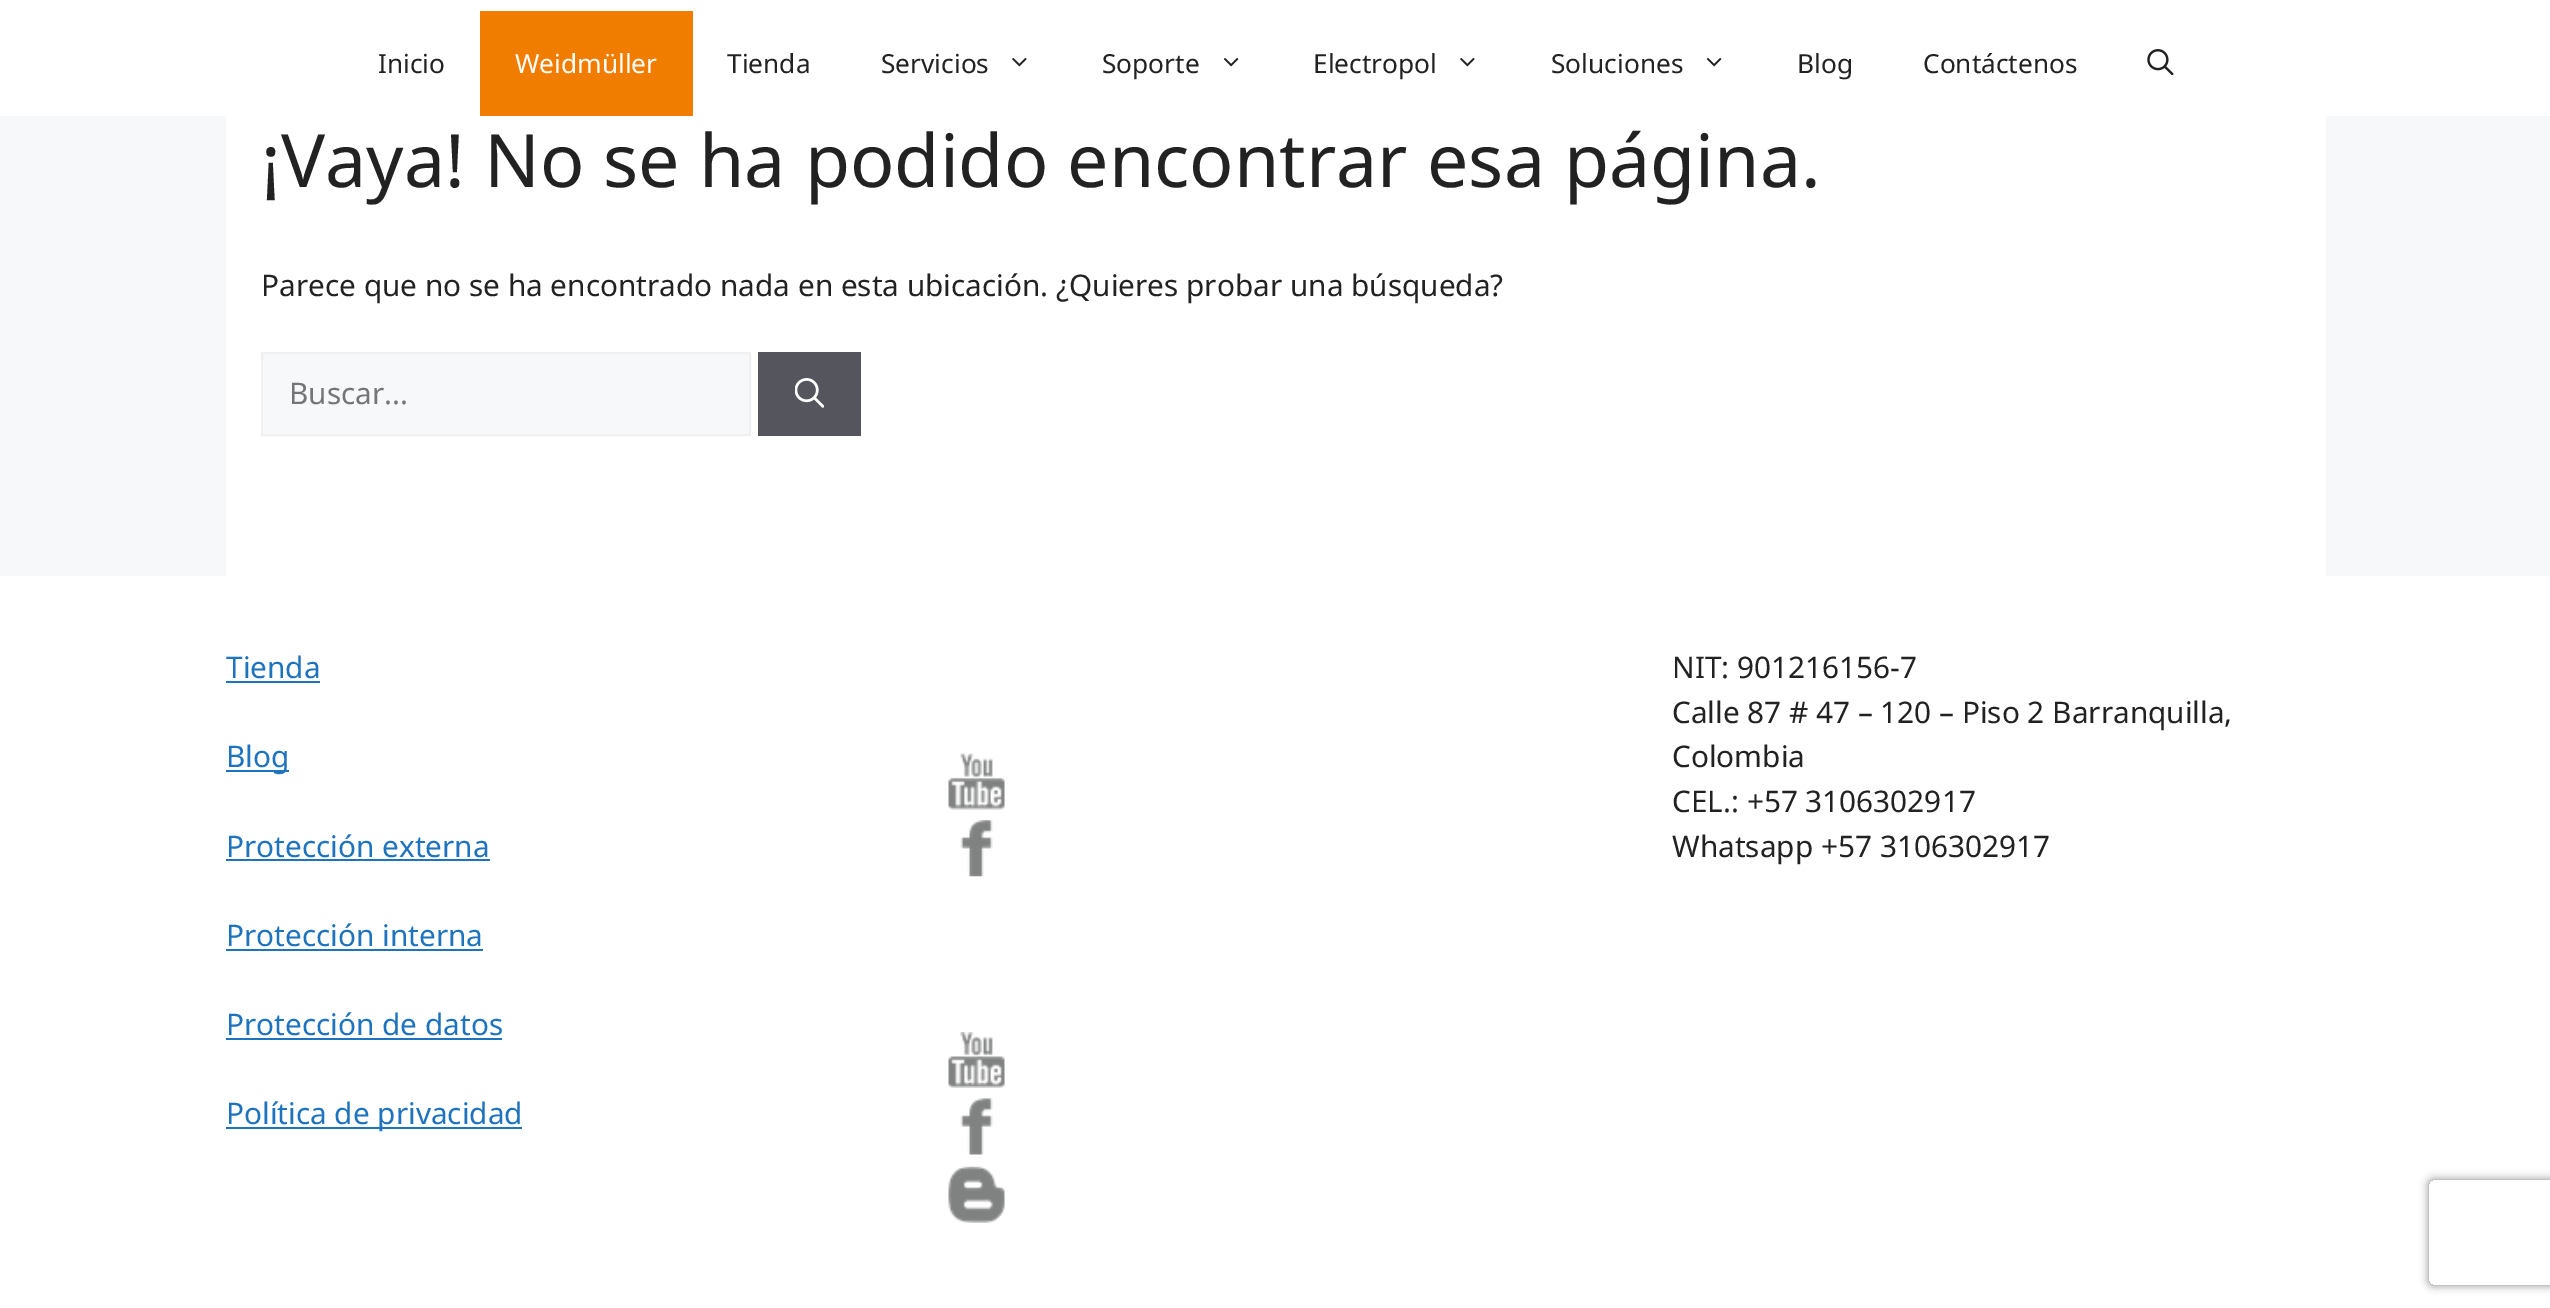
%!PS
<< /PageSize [2550 1308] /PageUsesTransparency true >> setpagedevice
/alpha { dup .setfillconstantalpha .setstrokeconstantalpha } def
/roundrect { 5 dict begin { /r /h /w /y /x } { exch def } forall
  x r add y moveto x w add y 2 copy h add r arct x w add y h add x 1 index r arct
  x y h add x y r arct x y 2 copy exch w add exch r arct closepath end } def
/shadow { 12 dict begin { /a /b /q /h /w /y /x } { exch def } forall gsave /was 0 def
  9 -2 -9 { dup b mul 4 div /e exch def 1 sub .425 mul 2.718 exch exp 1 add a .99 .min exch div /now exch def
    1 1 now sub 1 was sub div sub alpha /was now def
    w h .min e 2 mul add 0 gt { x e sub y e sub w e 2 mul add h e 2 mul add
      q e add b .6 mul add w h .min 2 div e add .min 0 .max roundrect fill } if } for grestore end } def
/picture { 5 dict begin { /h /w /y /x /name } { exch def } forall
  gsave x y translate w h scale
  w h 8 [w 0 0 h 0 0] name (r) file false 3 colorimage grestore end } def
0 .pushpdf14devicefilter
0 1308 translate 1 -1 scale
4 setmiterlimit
0.969 0.973 0.976 setrgbcolor
0 0 2550 1308 rectfill
1 setgray
0 0 2550 116 rectfill
/NotoSans-Regular [26.25 0 0 -26.25 0 0] selectfont
0.133 setgray
378 73 moveto (Inicio) show
0.941 0.49 0 setrgbcolor
480 11 213 105 rectfill
1 setgray
515 73 moveto (Weidmüller) show
0.133 setgray
727 73 moveto (Tienda) show
881 73 moveto (Servicios) show
(img1.rgb) 1012 57 15 10 picture
1102 73 moveto (Soporte) show
(img2.rgb) 1223 58 16 9 picture
1313 73 moveto (Electropol) show
(img1.rgb) 1460 57 15 10 picture
1551 73 moveto (Soluciones) show
(img2.rgb) 1706 58 16 9 picture
1797 73 moveto (Blog) show
1923 73 moveto (Contáctenos) show
(img3.rgb) 2147 49 27 26 picture
1 setgray
226 116 2100 460 rectfill
/NotoSans-Regular [73.5 0 0 -73.5 0 0] selectfont
0.133 setgray
261 187 moveto (¡Vaya! No se ha podido encontrar esa página.) show
/NotoSans-Regular [29.75 0 0 -29.75 0 0] selectfont
261 296 moveto (Parece que no se ha encontrado nada en esta ubicación. ¿Quieres probar una búsqueda?) show
0.969 0.973 0.976 setrgbcolor
newpath 262 353 moveto 750 353 lineto 750 435 lineto 262 435 lineto closepath gsave fill grestore
0.941 setgray
2 setlinewidth
stroke
0.459 setgray
289 404 moveto (Buscar...) show
0.333 0.333 0.369 setrgbcolor
758 352 103 84 rectfill
(img4.rgb) 795 378 29 30 picture
1 setgray
0 576 2550 732 rectfill
0.118 0.451 0.745 setrgbcolor
226 678 moveto (Tienda) show
226 681 94 2 rectfill
226 770 63 2 rectfill
226 767 moveto (Blog) show
226 857 moveto (Protección externa) show
226 859 264 2 rectfill
226 946 moveto (Protección interna) show
226 949 257 2 rectfill
226 1035 moveto (Protección de datos) show
226 1038 276 2 rectfill
226 1127 296 2 rectfill
226 1124 moveto (Política de privacidad) show
(img5.rgb) 948 753 57 57 picture
(img6.rgb) 960 820 33 57 picture
(img7.rgb) 948 1032 57 56 picture
(img8.rgb) 960 1098 33 57 picture
(img9.rgb) 948 1166 57 57 picture
0.133 setgray
1672 678 moveto (NIT: 901216156-7) show
1672 723 moveto (Calle 87 # 47 – 120 – Piso 2 Barranquilla,) show
1672 767 moveto (Colombia) show
1672 812 moveto (CEL.: +57 3106302917) show
1672 857 moveto (Whatsapp +57 3106302917) show
gsave
newpath 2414 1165 moveto 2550 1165 lineto 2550 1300 lineto 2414 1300 lineto closepath 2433 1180 moveto 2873 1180 lineto 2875 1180 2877 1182 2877 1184 curveto 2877 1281 lineto 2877 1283 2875 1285 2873 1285 curveto 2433 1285 lineto 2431 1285 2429 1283 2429 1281 curveto 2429 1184 lineto 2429 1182 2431 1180 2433 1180 curveto closepath eoclip newpath
0.502 setgray
2429 1180 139 105 4 4.5 1 shadow
grestore
.poppdf14devicefilter showpage
